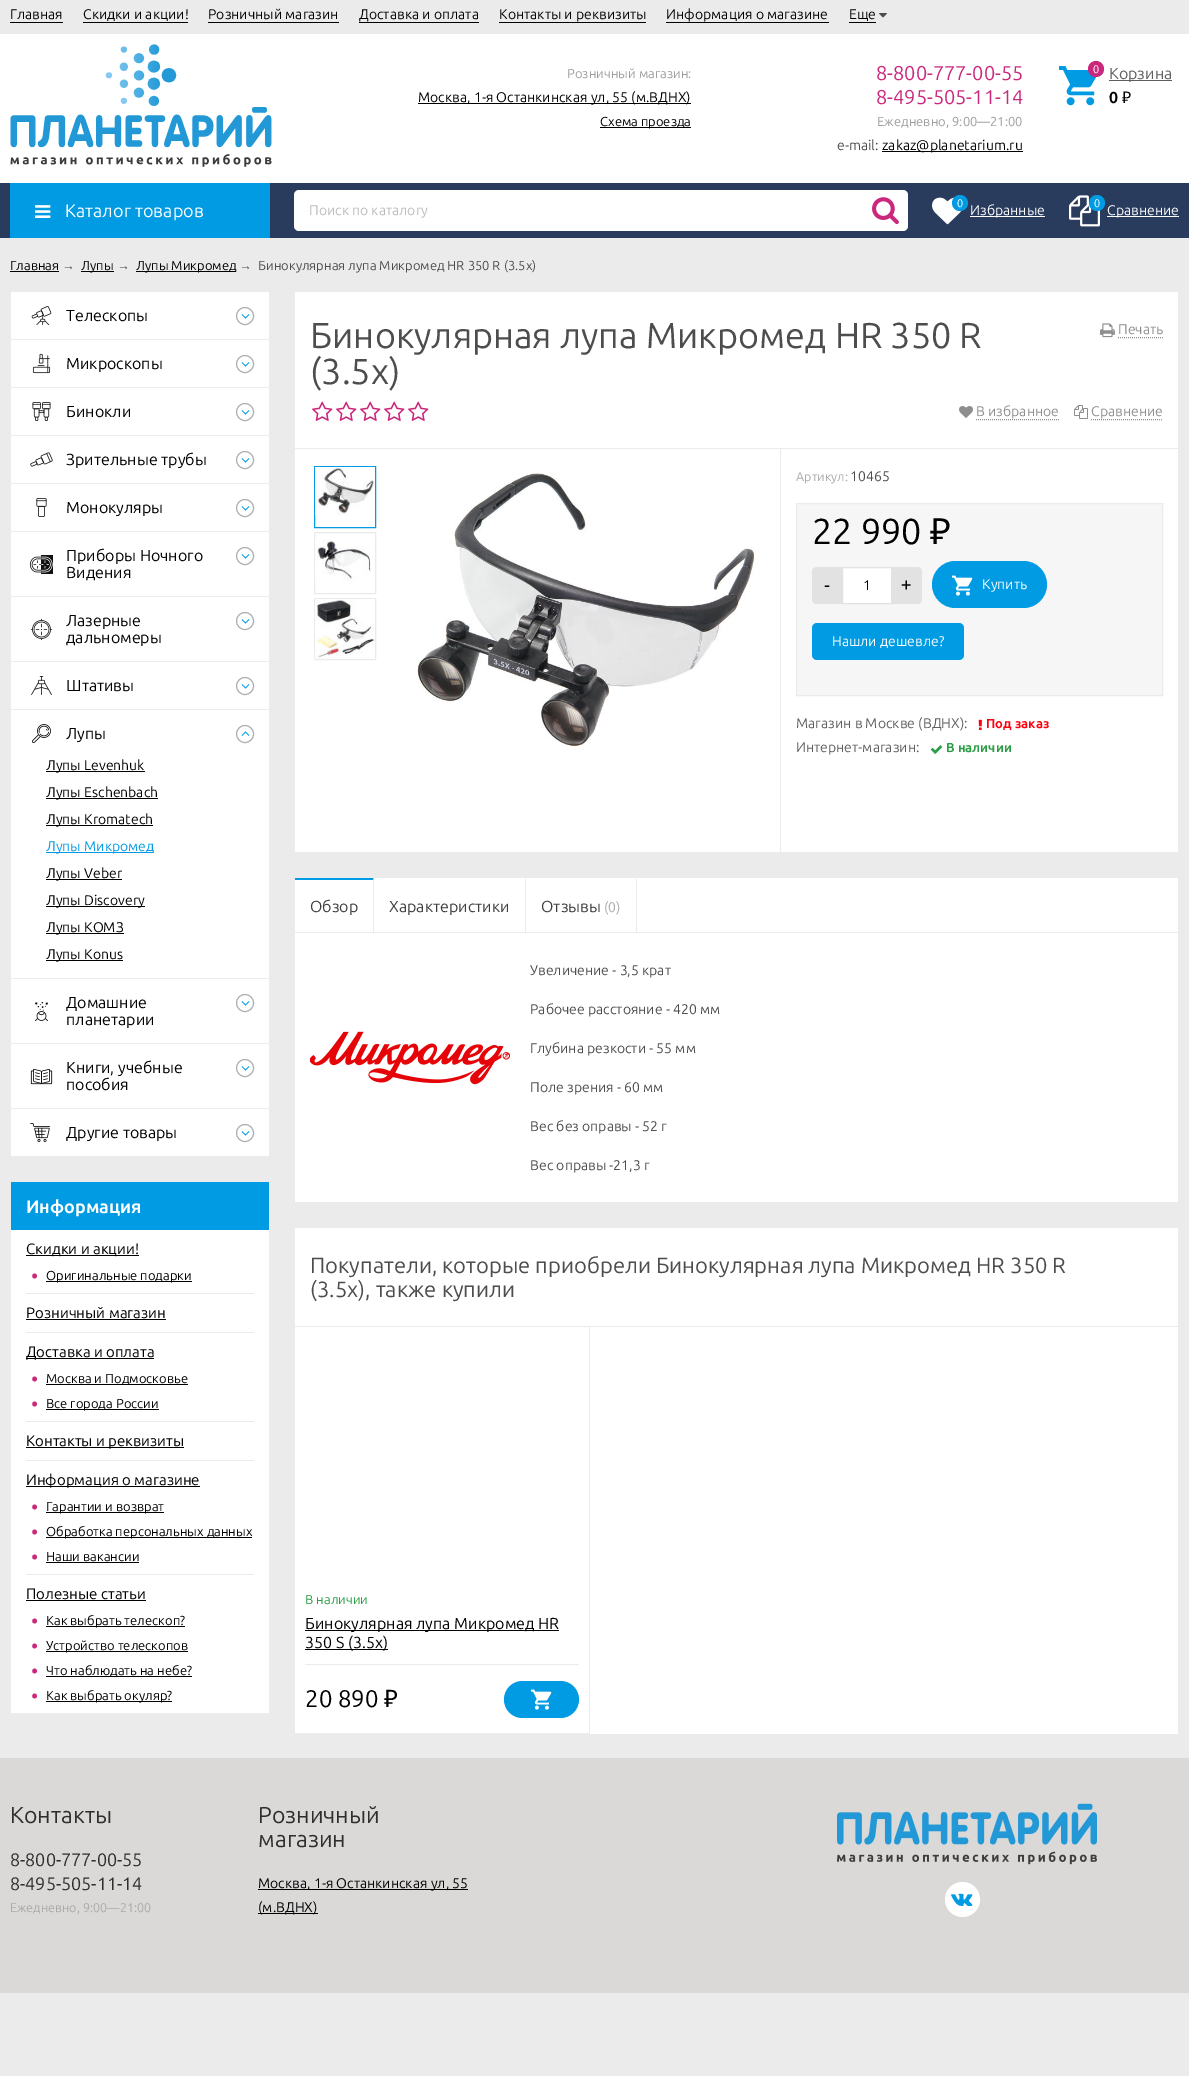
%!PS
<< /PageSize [1189 2076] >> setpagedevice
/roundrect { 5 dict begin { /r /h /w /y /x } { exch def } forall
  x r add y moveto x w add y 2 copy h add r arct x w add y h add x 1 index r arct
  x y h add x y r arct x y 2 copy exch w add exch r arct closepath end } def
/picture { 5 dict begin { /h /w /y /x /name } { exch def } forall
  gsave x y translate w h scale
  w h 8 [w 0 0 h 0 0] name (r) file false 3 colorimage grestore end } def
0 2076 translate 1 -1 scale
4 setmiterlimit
0.922 setgray
0 0 1189 2076 rectfill
/Ubuntu-Regular [14 0 0 -14 0 0] selectfont
0 setgray
10 19 moveto (Главная) show
10 22 53 1 rectfill
83 19 moveto (Скидки и акции!) show
83 22 105 1 rectfill
208 19 moveto (Розничный магазин) show
208 22 131 1 rectfill
359 19 moveto (Доставка и оплата) show
359 22 120 1 rectfill
499 19 moveto (Контакты и реквизиты) show
499 22 147 1 rectfill
666 19 moveto (Информация о магазине) show
666 22 163 1 rectfill
849 19 moveto (Еще) show
849 22 27 1 rectfill
(img1.rgb) 879 13 8 5 picture
1 setgray
0 34 1189 149 rectfill
(img2.rgb) 10 44 262 123 picture
/Ubuntu-Regular [13 0 0 -13 0 0] selectfont
0.62 setgray
567 78 moveto (Розничный магазин:) show
0 setgray
418 103 273 1 rectfill
/Ubuntu-Regular [14 0 0 -14 0 0] selectfont
418 102 moveto (Москва, 1-я Останкинская ул, 55 \(м.ВДНХ\)) show
600 127 91 1 rectfill
/Ubuntu-Regular [13 0 0 -13 0 0] selectfont
600 126 moveto (Схема проезда) show
/Ubuntu-Regular [20 0 0 -20 0 0] selectfont
0.792 0.157 0.49 setrgbcolor
876 80 moveto (8-800-777-00-55) show
876 104 moveto (8-495-505-11-14) show
/Ubuntu-Regular [13 0 0 -13 0 0] selectfont
0.62 setgray
877 126 moveto (Ежедневно, 9:00—21:00) show
/Ubuntu-Regular [14 0 0 -14 0 0] selectfont
0.302 setgray
837 150 moveto (e-mail:) show
0 setgray
882 151 141 1 rectfill
882 150 moveto (zakaz@planetarium.ru) show
(img3.rgb) 1059 66 38 40 picture
0.792 0.157 0.49 setrgbcolor
newpath 1096 69 8 0 360 arc closepath fill
/Ubuntu-Regular [11 0 0 -11 0 0] selectfont
1 setgray
1093 73 moveto (0) show
0.365 setgray
1109 80 63 1 rectfill
/Ubuntu-Regular [16 0 0 -16 0 0] selectfont
0.373 setgray
1109 79 moveto (Корзина) show
/Ubuntu-Bold [16 0 0 -16 0 0] selectfont
0 setgray
1109 103 moveto (0) show
/NotoSans-Regular [16 0 0 -16 0 0] selectfont
1122 103 moveto (₽) show
0.165 0.235 0.369 setrgbcolor
0 183 1189 55 rectfill
0 0.608 0.89 setrgbcolor
10 183 260 55 rectfill
(img4.rgb) 35 205 16 13 picture
/Ubuntu-Regular [18 0 0 -18 0 0] selectfont
1 setgray
65 217 moveto (Каталог товаров) show
294 190 614 41 5 roundrect fill
/Ubuntu-Regular [14 0 0 -14 0 0] selectfont
0.733 setgray
309 215 moveto (Поиск по каталогу) show
(img5.rgb) 872 197 27 28 picture
(img6.rgb) 932 197 30 28 picture
0 0.608 0.89 setrgbcolor
newpath 960 203 8 0 360 arc closepath fill
/Ubuntu-Regular [11 0 0 -11 0 0] selectfont
1 setgray
957 207 moveto (0) show
970 216 75 1 rectfill
/Ubuntu-Regular [14 0 0 -14 0 0] selectfont
970 215 moveto (Избранные) show
(img7.rgb) 1069 195 31 32 picture
0 0.608 0.89 setrgbcolor
newpath 1097 203 8 0 360 arc closepath fill
/Ubuntu-Regular [11 0 0 -11 0 0] selectfont
1 setgray
1094 207 moveto (0) show
1107 216 72 1 rectfill
/Ubuntu-Regular [14 0 0 -14 0 0] selectfont
1107 215 moveto (Сравнение) show
/Ubuntu-Regular [13 0 0 -13 0 0] selectfont
0 setgray
10 270 moveto (Главная) show
10 271 49 1 rectfill
/LiberationSans-Regular [13 0 0 -13 0 0] selectfont
0.302 setgray
62 270 moveto (→) show
0 setgray
81 271 33 1 rectfill
/Ubuntu-Regular [13 0 0 -13 0 0] selectfont
81 270 moveto (Лупы) show
/LiberationSans-Regular [13 0 0 -13 0 0] selectfont
0.302 setgray
117 270 moveto (→) show
0 setgray
136 271 100 1 rectfill
/Ubuntu-Regular [13 0 0 -13 0 0] selectfont
136 270 moveto (Лупы Микромед) show
/LiberationSans-Regular [13 0 0 -13 0 0] selectfont
0.302 setgray
239 270 moveto (→) show
/Ubuntu-Regular [13 0 0 -13 0 0] selectfont
258 270 moveto (Бинокулярная лупа Микромед HR 350 R \(3.5х\)) show
1 setgray
11 292 258 864 rectfill
0.922 setgray
11 339 258 1 rectfill
(img8.rgb) 31 306 21 19 picture
/Ubuntu-Regular [16 0 0 -16 0 0] selectfont
0 setgray
66 321 moveto (Телескопы) show
0.682 setgray
newpath 245 316 8.5 0 360 arc closepath stroke
(img9.rgb) 241 314 9 5 picture
0.922 setgray
11 387 258 1 rectfill
(img10.rgb) 32 353 19 21 picture
0 setgray
66 369 moveto (Микроскопы) show
0.682 setgray
newpath 245 364 8.5 0 360 arc closepath stroke
(img9.rgb) 241 362 9 5 picture
0.922 setgray
11 435 258 1 rectfill
(img11.rgb) 32 402 19 19 picture
0 setgray
66 417 moveto (Бинокли) show
0.682 setgray
newpath 245 412 8.5 0 360 arc closepath stroke
(img9.rgb) 241 410 9 5 picture
0.922 setgray
11 483 258 1 rectfill
(img12.rgb) 30 452 23 15 picture
0 setgray
66 465 moveto (Зрительные трубы) show
0.682 setgray
newpath 245 460 8.5 0 360 arc closepath stroke
(img9.rgb) 241 458 9 5 picture
0.922 setgray
11 531 258 1 rectfill
(img13.rgb) 36 498 11 19 picture
0 setgray
66 513 moveto (Монокуляры) show
0.682 setgray
newpath 245 508 8.5 0 360 arc closepath stroke
(img9.rgb) 241 506 9 5 picture
0.922 setgray
11 596 258 1 rectfill
(img14.rgb) 29 555 24 19 picture
0 setgray
66 561 moveto (Приборы Ночного) show
66 578 moveto (Видения) show
0.682 setgray
newpath 245 556 8.5 0 360 arc closepath stroke
(img9.rgb) 241 554 9 5 picture
0.922 setgray
11 661 258 1 rectfill
(img15.rgb) 30 618 23 23 picture
0 setgray
66 626 moveto (Лазерные) show
66 643 moveto (дальномеры) show
0.682 setgray
newpath 245 621 8.5 0 360 arc closepath stroke
(img9.rgb) 241 619 9 5 picture
0.922 setgray
11 709 258 1 rectfill
(img16.rgb) 31 676 21 19 picture
0 setgray
66 691 moveto (Штативы) show
0.682 setgray
newpath 245 686 8.5 0 360 arc closepath stroke
(img9.rgb) 241 684 9 5 picture
0.922 setgray
11 978 258 1 rectfill
(img17.rgb) 32 724 19 19 picture
0 setgray
66 739 moveto (Лупы) show
0.682 setgray
newpath 245 734 8.5 0 360 arc closepath stroke
(img18.rgb) 241 731 9 5 picture
0 setgray
46 771 99 1 rectfill
/Ubuntu-Regular [14 0 0 -14 0 0] selectfont
46 770 moveto (Лупы Levenhuk) show
46 798 112 1 rectfill
46 797 moveto (Лупы Eschenbach) show
46 825 107 1 rectfill
46 824 moveto (Лупы Kromatech) show
0 0.608 0.89 setrgbcolor
46 852 108 1 rectfill
46 851 moveto (Лупы Микромед) show
0 setgray
46 879 76 1 rectfill
46 878 moveto (Лупы Veber) show
46 906 99 1 rectfill
46 905 moveto (Лупы Discovery) show
46 933 78 1 rectfill
46 932 moveto (Лупы КОМЗ) show
46 960 77 1 rectfill
46 959 moveto (Лупы Konus) show
0.922 setgray
11 1043 258 1 rectfill
(img19.rgb) 34 1002 15 20 picture
/Ubuntu-Regular [16 0 0 -16 0 0] selectfont
0 setgray
66 1008 moveto (Домашние) show
66 1025 moveto (планетарии) show
0.682 setgray
newpath 245 1003 8.5 0 360 arc closepath stroke
(img9.rgb) 241 1001 9 5 picture
0.922 setgray
11 1108 258 1 rectfill
(img20.rgb) 30 1068 23 17 picture
0 setgray
66 1073 moveto (Книги, учебные) show
66 1090 moveto (пособия) show
0.682 setgray
newpath 245 1068 8.5 0 360 arc closepath stroke
(img9.rgb) 241 1066 9 5 picture
(img21.rgb) 30 1123 21 19 picture
0 setgray
66 1138 moveto (Другие товары) show
0.682 setgray
newpath 245 1133 8.5 0 360 arc closepath stroke
(img9.rgb) 241 1131 9 5 picture
1 setgray
11 1230 258 483 rectfill
0 0.608 0.89 setrgbcolor
11 1182 258 48 rectfill
/Ubuntu-Bold [18 0 0 -18 0 0] selectfont
1 setgray
26 1213 moveto (Информация) show
0.922 setgray
26 1293 228 1 rectfill
0 setgray
26 1255 113 1 rectfill
/Ubuntu-Regular [15 0 0 -15 0 0] selectfont
26 1254 moveto (Скидки и акции!) show
/Ubuntu-Regular [20 0 0 -20 0 0] selectfont
0.792 0.157 0.49 setrgbcolor
31 1283 moveto (•) show
0 setgray
46 1281 146 1 rectfill
/Ubuntu-Regular [13 0 0 -13 0 0] selectfont
46 1280 moveto (Оригинальные подарки) show
0.922 setgray
26 1332 228 1 rectfill
/Ubuntu-Regular [15 0 0 -15 0 0] selectfont
0 setgray
26 1318 moveto (Розничный магазин) show
26 1319 140 1 rectfill
0.922 setgray
26 1421 228 1 rectfill
0 setgray
26 1358 128 1 rectfill
26 1357 moveto (Доставка и оплата) show
/Ubuntu-Regular [20 0 0 -20 0 0] selectfont
0.792 0.157 0.49 setrgbcolor
31 1386 moveto (•) show
0 setgray
46 1384 142 1 rectfill
/Ubuntu-Regular [13 0 0 -13 0 0] selectfont
46 1383 moveto (Москва и Подмосковье) show
/Ubuntu-Regular [20 0 0 -20 0 0] selectfont
0.792 0.157 0.49 setrgbcolor
31 1411 moveto (•) show
0 setgray
46 1409 113 1 rectfill
/Ubuntu-Regular [13 0 0 -13 0 0] selectfont
46 1408 moveto (Все города России) show
0.922 setgray
26 1460 228 1 rectfill
0 setgray
26 1447 158 1 rectfill
/Ubuntu-Regular [15 0 0 -15 0 0] selectfont
26 1446 moveto (Контакты и реквизиты) show
0.922 setgray
26 1574 228 1 rectfill
0 setgray
26 1486 174 1 rectfill
26 1485 moveto (Информация о магазине) show
/Ubuntu-Regular [20 0 0 -20 0 0] selectfont
0.792 0.157 0.49 setrgbcolor
31 1514 moveto (•) show
0 setgray
46 1512 118 1 rectfill
/Ubuntu-Regular [13 0 0 -13 0 0] selectfont
46 1511 moveto (Гарантии и возврат) show
/Ubuntu-Regular [20 0 0 -20 0 0] selectfont
0.792 0.157 0.49 setrgbcolor
31 1539 moveto (•) show
0 setgray
46 1537 206 1 rectfill
/Ubuntu-Regular [13 0 0 -13 0 0] selectfont
46 1536 moveto (Обработка персональных данных) show
/Ubuntu-Regular [20 0 0 -20 0 0] selectfont
0.792 0.157 0.49 setrgbcolor
31 1564 moveto (•) show
/Ubuntu-Regular [13 0 0 -13 0 0] selectfont
0 setgray
46 1561 moveto (Наши вакансии) show
46 1562 93 1 rectfill
/Ubuntu-Regular [15 0 0 -15 0 0] selectfont
26 1599 moveto (Полезные статьи) show
26 1600 120 1 rectfill
/Ubuntu-Regular [20 0 0 -20 0 0] selectfont
0.792 0.157 0.49 setrgbcolor
31 1628 moveto (•) show
0 setgray
46 1626 139 1 rectfill
/Ubuntu-Regular [13 0 0 -13 0 0] selectfont
46 1625 moveto (Как выбрать телескоп?) show
/Ubuntu-Regular [20 0 0 -20 0 0] selectfont
0.792 0.157 0.49 setrgbcolor
31 1653 moveto (•) show
0 setgray
46 1651 142 1 rectfill
/Ubuntu-Regular [13 0 0 -13 0 0] selectfont
46 1650 moveto (Устройство телескопов) show
/Ubuntu-Regular [20 0 0 -20 0 0] selectfont
0.792 0.157 0.49 setrgbcolor
31 1678 moveto (•) show
0 setgray
46 1676 146 1 rectfill
/Ubuntu-Regular [13 0 0 -13 0 0] selectfont
46 1675 moveto (Что наблюдать на небе?) show
/Ubuntu-Regular [20 0 0 -20 0 0] selectfont
0.792 0.157 0.49 setrgbcolor
31 1703 moveto (•) show
0 setgray
46 1701 126 1 rectfill
/Ubuntu-Regular [13 0 0 -13 0 0] selectfont
46 1700 moveto (Как выбрать окуляр?) show
1 setgray
295 292 883 560 rectfill
0.922 setgray
295 448 883 1 rectfill
/Ubuntu-Regular [36 0 0 -36 0 0] selectfont
0.302 setgray
310 348 moveto (Бинокулярная лупа Микромед HR 350 R) show
310 384 moveto (\(3.5х\)) show
0.557 setgray
[1 1] 0 setdash
newpath 1118 337.5 moveto 1163 337.5 lineto stroke
(img22.rgb) 1100 323 15 15 picture
/Ubuntu-Regular [14 0 0 -14 0 0] selectfont
1118 334 moveto (Печать) show
(img23.rgb) 312 401 21 20 picture
(img23.rgb) 336 401 21 20 picture
(img23.rgb) 360 401 21 20 picture
(img23.rgb) 384 401 21 20 picture
(img23.rgb) 408 401 21 20 picture
(img24.rgb) 959 406 14 12 picture
976 416 moveto (В избранное) show
newpath 976 419.5 moveto 1059 419.5 lineto stroke
(img25.rgb) 1074 405 14 14 picture
1091 416 moveto (Сравнение) show
newpath 1091 419.5 moveto 1163 419.5 lineto stroke
0 0.608 0.89 setrgbcolor
[] 0 setdash
314.5 466.5 61 61 rectstroke
(img26.rgb) 315 467 60 48 picture
0.922 setgray
314.5 532.5 61 61 rectstroke
(img27.rgb) 315 540 56 41 picture
314.5 598.5 61 61 rectstroke
(img28.rgb) 315 599 60 60 picture
780 449 1 403 rectfill
(img29.rgb) 417 473 338 274 picture
/Ubuntu-Regular [12.6 0 0 -12.6 0 0] selectfont
0.667 setgray
796 481 moveto (Артикул:) show
/Ubuntu-Regular [14 0 0 -14 0 0] selectfont
0.302 setgray
850 481 moveto (10465) show
0.965 setgray
newpath 796.5 503.5 moveto 1162.5 503.5 lineto 1162.5 695.5 lineto 796.5 695.5 lineto closepath gsave fill grestore
0.922 setgray
stroke
/Ubuntu-Regular [36 0 0 -36 0 0] selectfont
0 setgray
812 544 moveto (22 990) show
/NotoSans-Regular [36 0 0 -36 0 0] selectfont
930 544 moveto (₽) show
0.886 setgray
newpath 817 567 moveto 842 567 lineto 842 604 lineto 817 604 lineto 814 604 812 602 812 599 curveto 812 572 lineto 812 569 814 567 817 567 curveto closepath fill
/LiberationSans-Regular [18 0 0 -18 0 0] selectfont
0 setgray
824 591 moveto (-) show
1 setgray
newpath 842.5 567.5 moveto 891.5 567.5 lineto 891.5 603.5 lineto 842.5 603.5 lineto closepath gsave fill grestore
0.886 setgray
stroke
/Ubuntu-Regular [14 0 0 -14 0 0] selectfont
0 setgray
863 590 moveto (1) show
0.886 setgray
newpath 892 567 moveto 917 567 lineto 920 567 922 569 922 572 curveto 922 599 lineto 922 602 920 604 917 604 curveto 892 604 lineto closepath fill
/LiberationSans-Regular [18 0 0 -18 0 0] selectfont
0 setgray
901 591 moveto (+) show
0 0.608 0.89 setrgbcolor
932 561 115 47 23.5 roundrect fill
(img30.rgb) 952 575 21 21 picture
/Ubuntu-Regular [14 0 0 -14 0 0] selectfont
1 setgray
982 589 moveto (Купить) show
0 0.608 0.89 setrgbcolor
812 623 152 37 5 roundrect fill
1 setgray
832 646 moveto (Нашли дешевле?) show
0.373 setgray
796 728 moveto (Магазин в Москве \(ВДНХ\):) show
(img31.rgb) 978 719 4 11 picture
/Ubuntu-Bold [13 0 0 -13 0 0] selectfont
1 0 0.059 setrgbcolor
986 728 moveto (Под заказ) show
/Ubuntu-Regular [14 0 0 -14 0 0] selectfont
0.373 setgray
796 752 moveto (Интернет-магазин:) show
(img32.rgb) 930 745 13 9 picture
/Ubuntu-Bold [13 0 0 -13 0 0] selectfont
0.169 0.62 0.275 setrgbcolor
946 752 moveto (В наличии) show
1 setgray
295 878 883 324 rectfill
0.922 setgray
295 932 883 1 rectfill
0 0.608 0.89 setrgbcolor
newpath 295 878 moveto 374 878 lineto 373 880 lineto 295 880 lineto closepath fill
0.922 setgray
newpath 374 878 moveto 374 932 lineto 373 932 lineto 373 880 lineto closepath fill
/Ubuntu-Regular [16 0 0 -16 0 0] selectfont
0.247 setgray
310 912 moveto (Обзор) show
0.922 setgray
newpath 526 878 moveto 526 932 lineto 525 932 lineto 525 880 lineto closepath fill
0.247 setgray
389 912 moveto (Характеристики) show
0.922 setgray
newpath 637 878 moveto 637 932 lineto 636 932 lineto 636 880 lineto closepath fill
0.247 setgray
541 912 moveto (Отзывы) show
/Ubuntu-Regular [14 0 0 -14 0 0] selectfont
0.667 setgray
604 912 moveto (\(0\)) show
(img33.rgb) 310 1031 200 54 picture
0.302 setgray
530 975 moveto (Увеличение - 3,5 крат) show
530 1014 moveto (Рабочее расстояние - 420 мм) show
530 1053 moveto (Глубина резкости - 55 мм) show
530 1092 moveto (Поле зрения - 60 мм) show
530 1131 moveto (Вес без оправы - 52 г) show
530 1170 moveto (Вес оправы -21,3 г) show
1 setgray
295 1228 883 506 rectfill
/Ubuntu-Regular [22 0 0 -22 0 0] selectfont
0.302 setgray
310 1273 moveto (Покупатели, которые приобрели Бинокулярная лупа Микромед HR 350 R) show
310 1297 moveto (\(3.5х\), также купили) show
0.922 setgray
295 1326 883 1 rectfill
589 1327 1 407 rectfill
295 1733 295 1 rectfill
/Ubuntu-Regular [13 0 0 -13 0 0] selectfont
0.169 0.62 0.275 setrgbcolor
305 1604 moveto (В наличии) show
0 setgray
305 1630 254 1 rectfill
/Ubuntu-Regular [16 0 0 -16 0 0] selectfont
305 1629 moveto (Бинокулярная лупа Микромед HR) show
305 1649 83 1 rectfill
305 1648 moveto (350 S \(3.5х\)) show
0.922 setgray
305 1664 274 1 rectfill
/Ubuntu-Regular [24 0 0 -24 0 0] selectfont
0 setgray
305 1707 moveto (20 890) show
/NotoSans-Regular [24 0 0 -24 0 0] selectfont
384 1707 moveto (₽) show
0 0.608 0.89 setrgbcolor
504 1681 75 37 18.5 roundrect fill
(img30.rgb) 531 1689 21 21 picture
0.859 0.847 0.847 setrgbcolor
0 1758 1189 235 rectfill
/Ubuntu-Regular [23 0 0 -23 0 0] selectfont
0.18 setgray
10 1823 moveto (Контакты) show
/Ubuntu-Regular [18 0 0 -18 0 0] selectfont
10 1866 moveto (8-800-777-00-55) show
10 1890 moveto (8-495-505-11-14) show
/Ubuntu-Regular [12.6 0 0 -12.6 0 0] selectfont
0.667 setgray
10 1912 moveto (Ежедневно, 9:00—21:00) show
/Ubuntu-Regular [23 0 0 -23 0 0] selectfont
0.18 setgray
258 1823 moveto (Розничный) show
258 1847 moveto (магазин) show
0 setgray
258 1889 210 1 rectfill
/Ubuntu-Regular [14 0 0 -14 0 0] selectfont
258 1888 moveto (Москва, 1-я Останкинская ул, 55) show
258 1913 60 1 rectfill
258 1912 moveto (\(м.ВДНХ\)) show
(img34.rgb) 837 1803 260 62 picture
1 setgray
newpath 962.5 1899.5 17.5 0 360 arc closepath fill
(img35.rgb) 951 1893 22 13 picture
showpage
